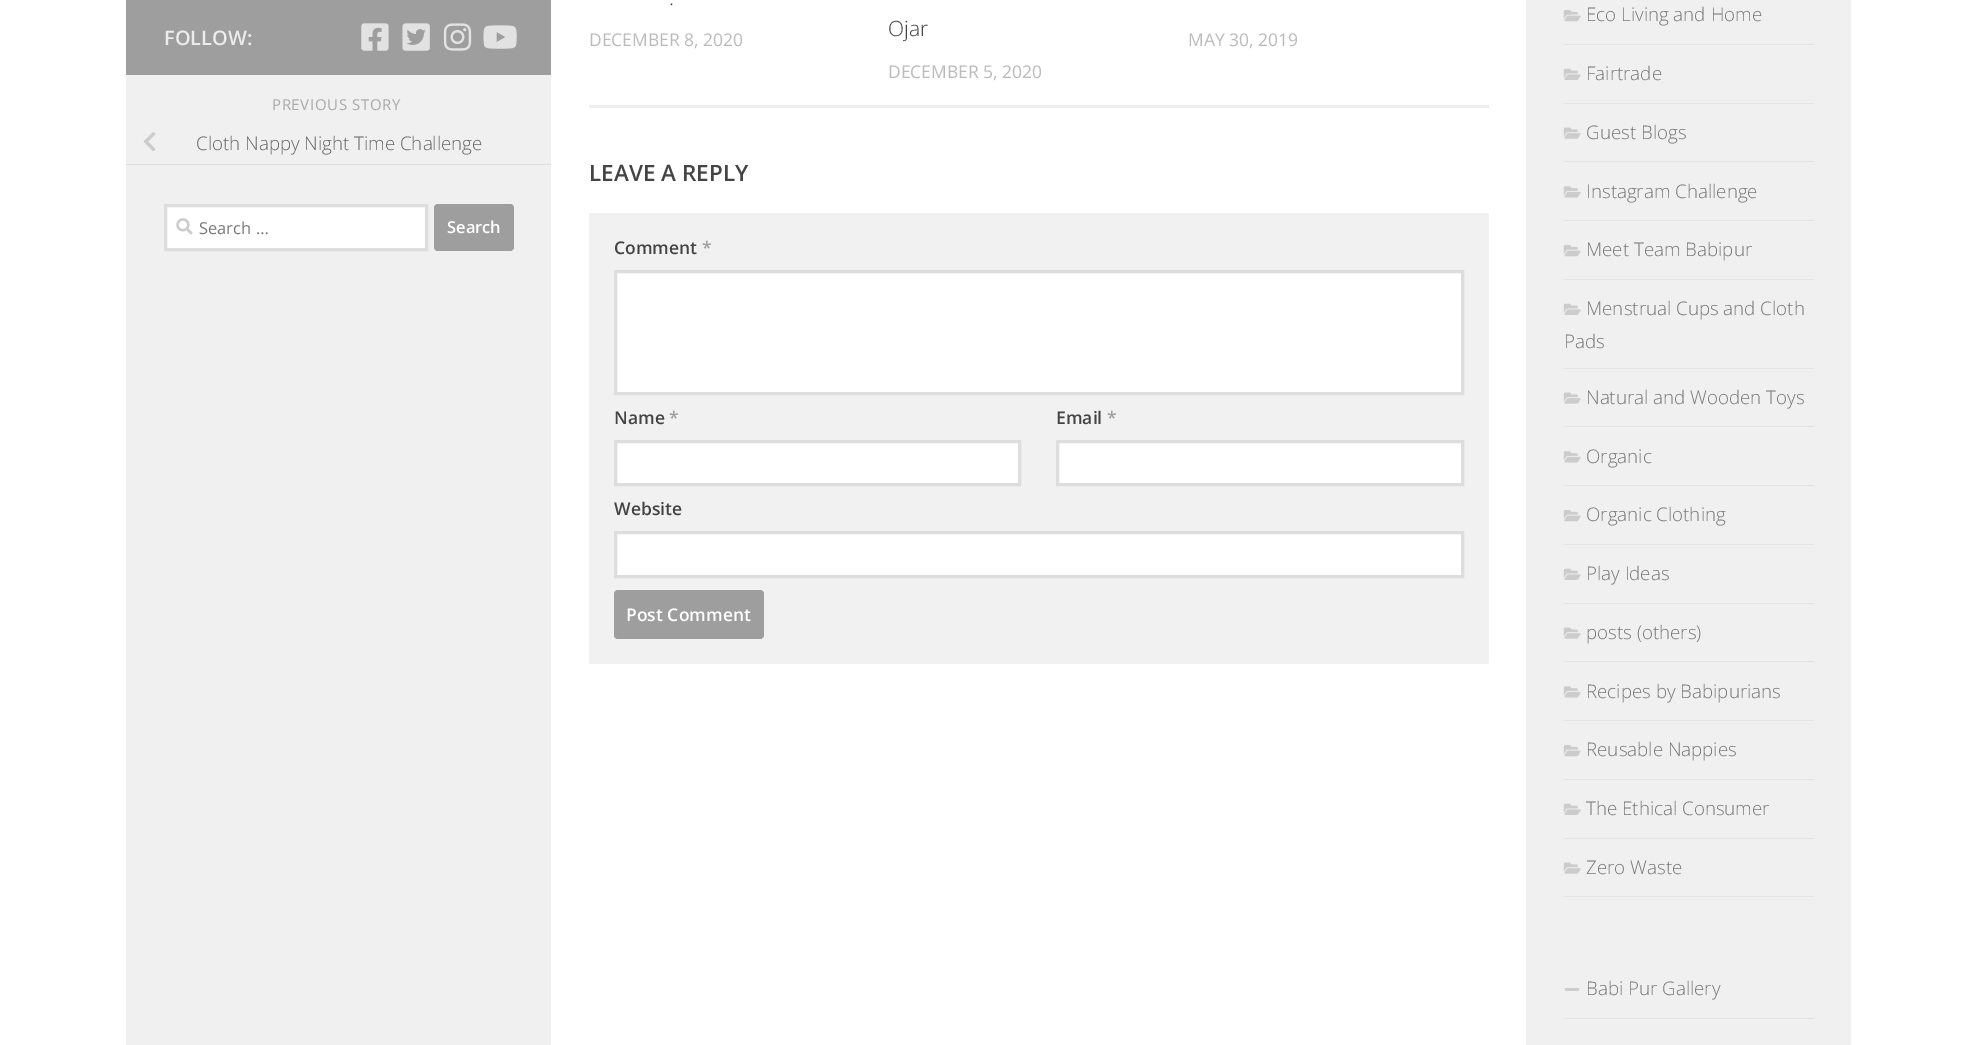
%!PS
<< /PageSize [1977 1045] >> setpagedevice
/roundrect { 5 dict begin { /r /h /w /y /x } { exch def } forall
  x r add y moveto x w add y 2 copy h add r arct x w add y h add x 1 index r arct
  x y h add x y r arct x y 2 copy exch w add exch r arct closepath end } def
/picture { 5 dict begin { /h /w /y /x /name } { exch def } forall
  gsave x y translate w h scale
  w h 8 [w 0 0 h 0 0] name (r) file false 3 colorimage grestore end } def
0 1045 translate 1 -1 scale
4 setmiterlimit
1 setgray
0 0 1977 1045 rectfill
0.941 setgray
1526 0 325 1045 rectfill
0.62 setgray
126 0 425 75 rectfill
/OpenSans-SemiBold [20 0 0 -20 0 0] selectfont
0.925 setgray
164 45 moveto (FOLLOW:) show
(img1.rgb) 361 23 28 28 picture
(img2.rgb) 402 23 28 28 picture
(img3.rgb) 443 23 29 28 picture
(img4.rgb) 483 25 34 24 picture
0.941 setgray
126 75 425 970 rectfill
/OpenSans-Regular [15 0 0 -15 0 0] selectfont
0.667 setgray
272 110 moveto 0.6 0 (PREVIOUS STORY) ashow
0.867 setgray
126 164 425 1 rectfill
(img5.rgb) 143 132 13 19 picture
/OpenSans-Light [18.75 0 0 -18.75 0 0] selectfont
0.4 setgray
196 150 moveto (Cloth Nappy Night Time Challenge) show
1 setgray
newpath 165.5 205.5 moveto 426.5 205.5 lineto 426.5 249.5 lineto 165.5 249.5 lineto closepath gsave fill grestore
0.867 setgray
3 setlinewidth
stroke
(img6.rgb) 176 218 17 17 picture
/OpenSans-Regular [16.5 0 0 -16.5 0 0] selectfont
0.467 setgray
199 234 moveto (Search …) show
0.62 setgray
434 204 80 47 4 roundrect fill
/OpenSans-SemiBold [16.5 0 0 -16.5 0 0] selectfont
1 setgray
447 233 moveto (Search) show
0.933 setgray
589 105 900 3 rectfill
/OpenSans-Light [21 0 0 -21 0 0] selectfont
0.267 setgray
669 5 moveto (.) show
/OpenSans-Regular [17.5 0 0 -17.5 0 0] selectfont
0.733 setgray
589 46 moveto (DECEMBER 8, 2020) show
/OpenSans-Light [21 0 0 -21 0 0] selectfont
0.267 setgray
888 36 moveto (Ojar) show
/OpenSans-Regular [17.5 0 0 -17.5 0 0] selectfont
0.733 setgray
888 78 moveto (DECEMBER 5, 2020) show
1188 46 moveto (MAY 30, 2019) show
/OpenSans-SemiBold [22.5 0 0 -22.5 0 0] selectfont
0.267 setgray
589 181 moveto (LEAVE A REPLY) show
0.945 setgray
589 213 900 451 2.5 roundrect fill
/OpenSans-SemiBold [17.5 0 0 -17.5 0 0] selectfont
0.267 setgray
614 254 moveto (Comment) show
0.62 setgray
702 254 moveto (*) show
1 setgray
newpath 615.5 271.5 moveto 1462.5 271.5 lineto 1462.5 393.5 lineto 615.5 393.5 lineto closepath gsave fill grestore
0.867 setgray
stroke
0.267 setgray
614 424 moveto (Name) show
0.62 setgray
669 424 moveto (*) show
1 setgray
newpath 615.5 441.5 moveto 1019.5 441.5 lineto 1019.5 484.5 lineto 615.5 484.5 lineto closepath gsave fill grestore
0.867 setgray
stroke
0.267 setgray
1056 424 moveto (Email) show
0.62 setgray
1107 424 moveto (*) show
1 setgray
newpath 1057.5 441.5 moveto 1462.5 441.5 lineto 1462.5 484.5 lineto 1057.5 484.5 lineto closepath gsave fill grestore
0.867 setgray
stroke
0.267 setgray
614 515 moveto (Website) show
1 setgray
newpath 615.5 532.5 moveto 1462.5 532.5 lineto 1462.5 576.5 lineto 615.5 576.5 lineto closepath gsave fill grestore
0.867 setgray
stroke
0.62 setgray
614 590 150 49 4 roundrect fill
1 setgray
626 621 moveto (Post Comment) show
0.894 setgray
1564 44 250 1 rectfill
(img7.rgb) 1563 10 18 12 picture
/OpenSans-Light [18.75 0 0 -18.75 0 0] selectfont
0.467 setgray
1586 21 moveto (Eco Living and Home) show
0.894 setgray
1564 103 250 1 rectfill
(img8.rgb) 1563 68 18 12 picture
0.467 setgray
1586 80 moveto (Fairtrade) show
0.894 setgray
1564 161 250 1 rectfill
(img9.rgb) 1563 127 18 12 picture
0.467 setgray
1586 139 moveto (Guest Blogs) show
0.894 setgray
1564 220 250 1 rectfill
(img10.rgb) 1563 186 18 12 picture
0.467 setgray
1586 198 moveto (Instagram Challenge) show
0.894 setgray
1564 279 250 1 rectfill
(img7.rgb) 1563 245 18 12 picture
0.467 setgray
1586 256 moveto (Meet Team Babipur) show
0.894 setgray
1564 368 250 1 rectfill
(img8.rgb) 1563 303 18 12 picture
0.467 setgray
1586 315 moveto (Menstrual Cups and Cloth) show
1564 348 moveto (Pads) show
0.894 setgray
1564 426 250 1 rectfill
(img9.rgb) 1563 392 18 12 picture
0.467 setgray
1586 404 moveto (Natural and Wooden Toys) show
0.894 setgray
1564 485 250 1 rectfill
(img10.rgb) 1563 451 18 12 picture
0.467 setgray
1586 463 moveto (Organic) show
0.894 setgray
1564 544 250 1 rectfill
(img7.rgb) 1563 510 18 12 picture
0.467 setgray
1586 521 moveto (Organic Clothing) show
0.894 setgray
1564 603 250 1 rectfill
(img8.rgb) 1563 568 18 12 picture
0.467 setgray
1586 580 moveto (Play Ideas) show
0.894 setgray
1564 661 250 1 rectfill
(img9.rgb) 1563 627 18 12 picture
0.467 setgray
1586 639 moveto (posts \(others\)) show
0.894 setgray
1564 720 250 1 rectfill
(img10.rgb) 1563 686 18 12 picture
0.467 setgray
1586 698 moveto (Recipes by Babipurians) show
0.894 setgray
1564 779 250 1 rectfill
(img7.rgb) 1563 745 18 12 picture
0.467 setgray
1586 756 moveto (Reusable Nappies) show
0.894 setgray
1564 838 250 1 rectfill
(img8.rgb) 1563 803 18 12 picture
0.467 setgray
1586 815 moveto (The Ethical Consumer) show
0.894 setgray
1564 896 250 1 rectfill
(img9.rgb) 1563 862 18 12 picture
0.467 setgray
1586 874 moveto (Zero Waste) show
0.894 setgray
1564 1018 250 1 rectfill
0.8 setgray
1565 988 14 3 rectfill
0.467 setgray
1586 995 moveto (Babi Pur Gallery) show
showpage
